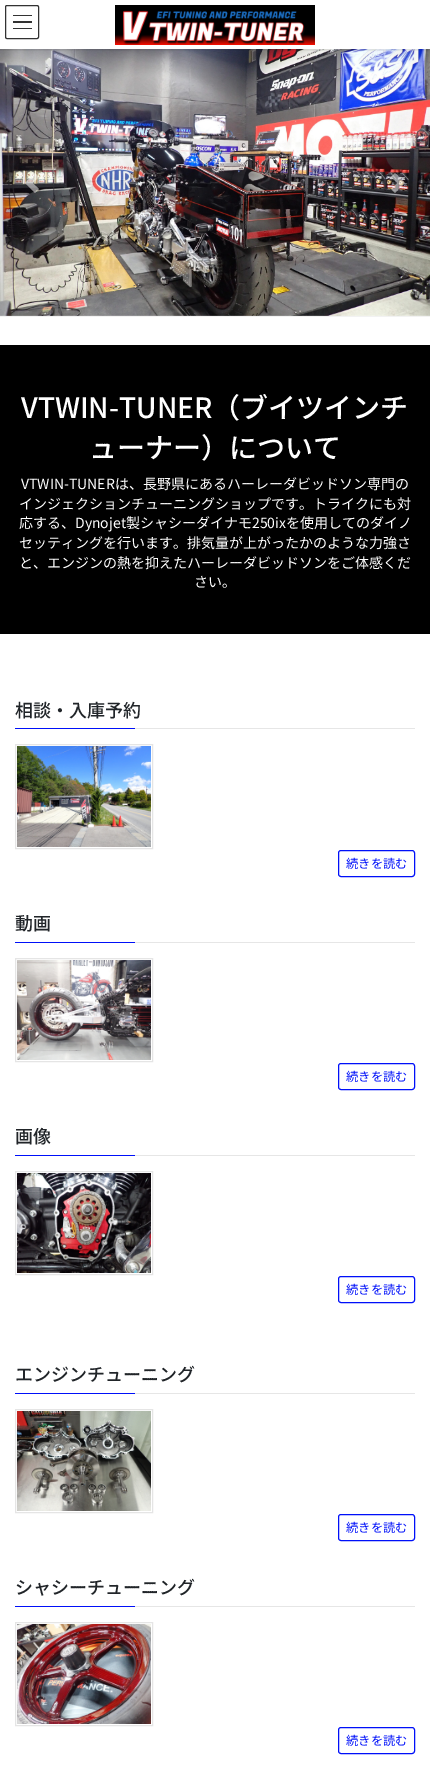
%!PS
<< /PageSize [430 1773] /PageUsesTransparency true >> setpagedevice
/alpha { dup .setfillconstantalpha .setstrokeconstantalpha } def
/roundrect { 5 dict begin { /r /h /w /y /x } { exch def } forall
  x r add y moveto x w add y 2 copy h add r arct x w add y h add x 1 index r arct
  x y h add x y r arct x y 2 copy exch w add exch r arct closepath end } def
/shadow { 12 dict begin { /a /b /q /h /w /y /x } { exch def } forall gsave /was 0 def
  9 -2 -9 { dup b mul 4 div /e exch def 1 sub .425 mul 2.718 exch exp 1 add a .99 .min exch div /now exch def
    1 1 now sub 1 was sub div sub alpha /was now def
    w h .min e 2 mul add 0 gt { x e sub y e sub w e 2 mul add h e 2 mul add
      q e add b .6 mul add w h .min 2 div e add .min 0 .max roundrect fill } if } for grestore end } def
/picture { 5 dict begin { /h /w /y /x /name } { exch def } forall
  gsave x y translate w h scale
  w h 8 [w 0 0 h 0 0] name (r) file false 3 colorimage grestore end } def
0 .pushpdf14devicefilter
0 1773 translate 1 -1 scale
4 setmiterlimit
1 setgray
0 0 430 1773 rectfill
(img2.rgb) 0 49 430 267 picture
gsave
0 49 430 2 rectclip
0 setgray
0 1 430 49 0 1.5 0.1 shadow
grestore
(img1.rgb) 115 5 200 40 picture
0.2 setgray
13 15 19 1 rectfill
13 21 19 2 rectfill
13 28 19 1 rectfill
5.5 5.5 33 33 1.5 roundrect stroke
0.949 setgray
0 316 430 1 rectfill
0.5 alpha
1 setgray
newpath 35 173 moveto 25 183 lineto 35 193 lineto 39 189 lineto 32.5 183 lineto 39 177 lineto closepath fill
newpath 395 173 moveto 391 177 lineto 397.5 183 lineto 391 189 lineto 395 193 lineto 405 183 lineto closepath fill
1 alpha
0 setgray
0 345 430 289 rectfill
/NotoSansJP-Medium [28 0 0 -28 0 0] selectfont
1 setgray
21 418 moveto (VTWIN-TUNER（ブイツインチ) show
89 458 moveto (ューナー）について) show
/NotoSansJP-Regular [14 0 0 -14 0 0] selectfont
21 489 moveto (VTWIN-TUNERは、長野県にあるハーレーダビッドソン専門の) show
19 509 moveto (インジェクションチューニングショップです。トライクにも対) show
19 528 moveto (応する、Dynojet製シャシーダイナモ250ixを使用してのダイノ) show
19 548 moveto (セッティングを行います。排気量が上がったかのような力強さ) show
19 568 moveto (と、エンジンの熱を抑えたハーレーダビッドソンをご体感くだ) show
194 587 moveto (さい。) show
0.902 setgray
135 728 280 1 rectfill
/NotoSansJP-Medium [18 0 0 -18 0 0] selectfont
0.129 0.145 0.161 setrgbcolor
15 717 moveto (相談・入庫予約) show
0 0.063 0.976 setrgbcolor
15 728 120 1 rectfill
0.898 setgray
15.5 744.5 137 104 rectstroke
(img3.rgb) 17 746 134 101 picture
0 0.063 0.976 setrgbcolor
338.5 850.5 76 26 2.5 roundrect stroke
/NotoSansJP-Regular [12.25 0 0 -12.25 0 0] selectfont
346 868 moveto (続きを読む) show
0.902 setgray
135 942 280 1 rectfill
/NotoSansJP-Medium [18 0 0 -18 0 0] selectfont
0.129 0.145 0.161 setrgbcolor
15 930 moveto (動画) show
0 0.063 0.976 setrgbcolor
15 942 120 1 rectfill
0.898 setgray
15.5 958.5 137 103 rectstroke
(img4.rgb) 17 960 134 100 picture
0 0.063 0.976 setrgbcolor
338.5 1063.5 76 26 2.5 roundrect stroke
/NotoSansJP-Regular [12.25 0 0 -12.25 0 0] selectfont
346 1081 moveto (続きを読む) show
0.902 setgray
135 1155 280 1 rectfill
/NotoSansJP-Medium [18 0 0 -18 0 0] selectfont
0.129 0.145 0.161 setrgbcolor
15 1143 moveto (画像) show
0 0.063 0.976 setrgbcolor
15 1155 120 1 rectfill
0.898 setgray
15.5 1171.5 137 103 rectstroke
(img5.rgb) 17 1173 134 100 picture
0 0.063 0.976 setrgbcolor
338.5 1276.5 76 26 2.5 roundrect stroke
/NotoSansJP-Regular [12.25 0 0 -12.25 0 0] selectfont
346 1294 moveto (続きを読む) show
0.902 setgray
135 1393 280 1 rectfill
/NotoSansJP-Medium [18 0 0 -18 0 0] selectfont
0.129 0.145 0.161 setrgbcolor
15 1381 moveto (エンジンチューニング) show
0 0.063 0.976 setrgbcolor
15 1393 120 1 rectfill
0.898 setgray
15.5 1409.5 137 103 rectstroke
(img6.rgb) 17 1411 134 100 picture
0 0.063 0.976 setrgbcolor
338.5 1514.5 76 26 2.5 roundrect stroke
/NotoSansJP-Regular [12.25 0 0 -12.25 0 0] selectfont
346 1532 moveto (続きを読む) show
0.902 setgray
135 1606 280 1 rectfill
/NotoSansJP-Medium [18 0 0 -18 0 0] selectfont
0.129 0.145 0.161 setrgbcolor
15 1594 moveto (シャシーチューニング) show
0 0.063 0.976 setrgbcolor
15 1606 120 1 rectfill
0.898 setgray
15.5 1622.5 137 103 rectstroke
(img7.rgb) 17 1624 134 100 picture
0 0.063 0.976 setrgbcolor
338.5 1727.5 76 26 2.5 roundrect stroke
/NotoSansJP-Regular [12.25 0 0 -12.25 0 0] selectfont
346 1745 moveto (続きを読む) show
.poppdf14devicefilter showpage
